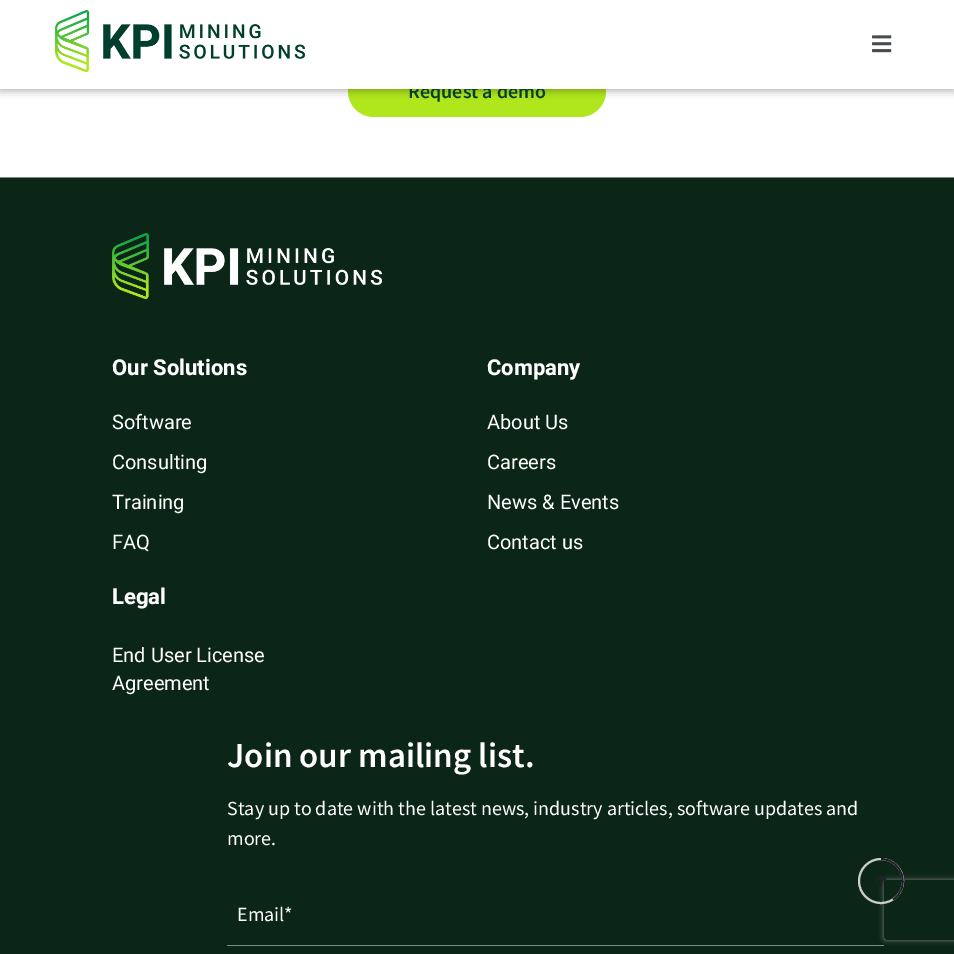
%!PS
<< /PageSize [954 954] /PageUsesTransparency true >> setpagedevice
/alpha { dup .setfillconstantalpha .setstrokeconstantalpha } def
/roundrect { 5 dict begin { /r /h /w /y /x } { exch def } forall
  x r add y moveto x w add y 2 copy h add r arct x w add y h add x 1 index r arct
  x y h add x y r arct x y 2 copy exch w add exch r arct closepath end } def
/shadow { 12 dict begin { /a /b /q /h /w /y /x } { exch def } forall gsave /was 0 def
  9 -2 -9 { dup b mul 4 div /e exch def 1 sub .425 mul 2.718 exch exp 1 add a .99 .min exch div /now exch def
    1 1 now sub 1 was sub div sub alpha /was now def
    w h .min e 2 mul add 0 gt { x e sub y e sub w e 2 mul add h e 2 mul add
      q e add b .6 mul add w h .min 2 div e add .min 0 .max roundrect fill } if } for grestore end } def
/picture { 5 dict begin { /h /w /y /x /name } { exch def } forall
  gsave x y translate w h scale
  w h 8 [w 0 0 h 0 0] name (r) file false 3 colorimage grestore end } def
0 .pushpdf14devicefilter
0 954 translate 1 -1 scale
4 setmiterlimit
1 setgray
0 0 954 954 rectfill
0.69 0.906 0.11 setrgbcolor
348 65 258 52 26 roundrect fill
0 setgray
0 2 954 89 0 4 0.31 shadow
/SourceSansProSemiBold-SemiBold [20 0 0 -20 0 0] selectfont
0.016 0.247 0.176 setrgbcolor
408 98 moveto (Request a demo) show
1 setgray
0 0 954 89 rectfill
(img1.rgb) 55 10 250 62 picture
(img2.rgb) 872 35 20 18 picture
0.043 0.149 0.086 setrgbcolor
0 178 954 776 rectfill
0.471 0.557 0.537 setrgbcolor
0 177 954 1 rectfill
(img3.rgb) 112 233 270 66 picture
/Heebo-Bold [22 0 0 -22 0 0] selectfont
1 setgray
112 375 moveto (Our Solutions) show
/Heebo-Regular [20 0 0 -20 0 0] selectfont
112 429 moveto (Software) show
112 469 moveto (Consulting) show
112 509 moveto (Training) show
112 549 moveto (FAQ) show
/Heebo-Bold [22 0 0 -22 0 0] selectfont
487 375 moveto (Company) show
/Heebo-Regular [20 0 0 -20 0 0] selectfont
487 429 moveto (About Us) show
487 469 moveto (Careers) show
487 509 moveto (News & Events) show
487 549 moveto (Contact us) show
/Heebo-Bold [22 0 0 -22 0 0] selectfont
112 604 moveto (Legal) show
/Heebo-Regular [20 0 0 -20 0 0] selectfont
112 662 moveto (End User License) show
112 690 moveto (Agreement) show
/SourceSansProSemiBold-SemiBold [35 0 0 -35 0 0] selectfont
227 767 moveto (Join our mailing list.) show
/SourceSansPro-Regular [20 0 0 -20 0 0] selectfont
227 815 moveto (Stay up to date with the latest news, industry articles, software updates and) show
227 845 moveto (more.) show
0.471 0.557 0.537 setrgbcolor
227 945 657 1 rectfill
1 setgray
237 921 moveto (Email*) show
gsave
newpath 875 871 moveto 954 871 lineto 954 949 lineto 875 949 lineto closepath 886 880 moveto 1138 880 lineto 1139 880 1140 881 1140 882 curveto 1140 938 lineto 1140 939 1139 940 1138 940 curveto 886 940 lineto 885 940 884 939 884 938 curveto 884 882 lineto 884 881 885 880 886 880 curveto closepath eoclip newpath
0.502 setgray
884 880 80 60 2 2.5 1 shadow
grestore
0.8 setgray
2 setlinewidth
newpath 881 881 22 0 360 arc closepath stroke
0.122 0.125 0.161 setrgbcolor
1.8 setlinewidth
newpath 881 859 moveto 903 859 911 888 893 899.5 curveto stroke
(img4.rgb) 875 875 12 12 picture
.poppdf14devicefilter showpage
